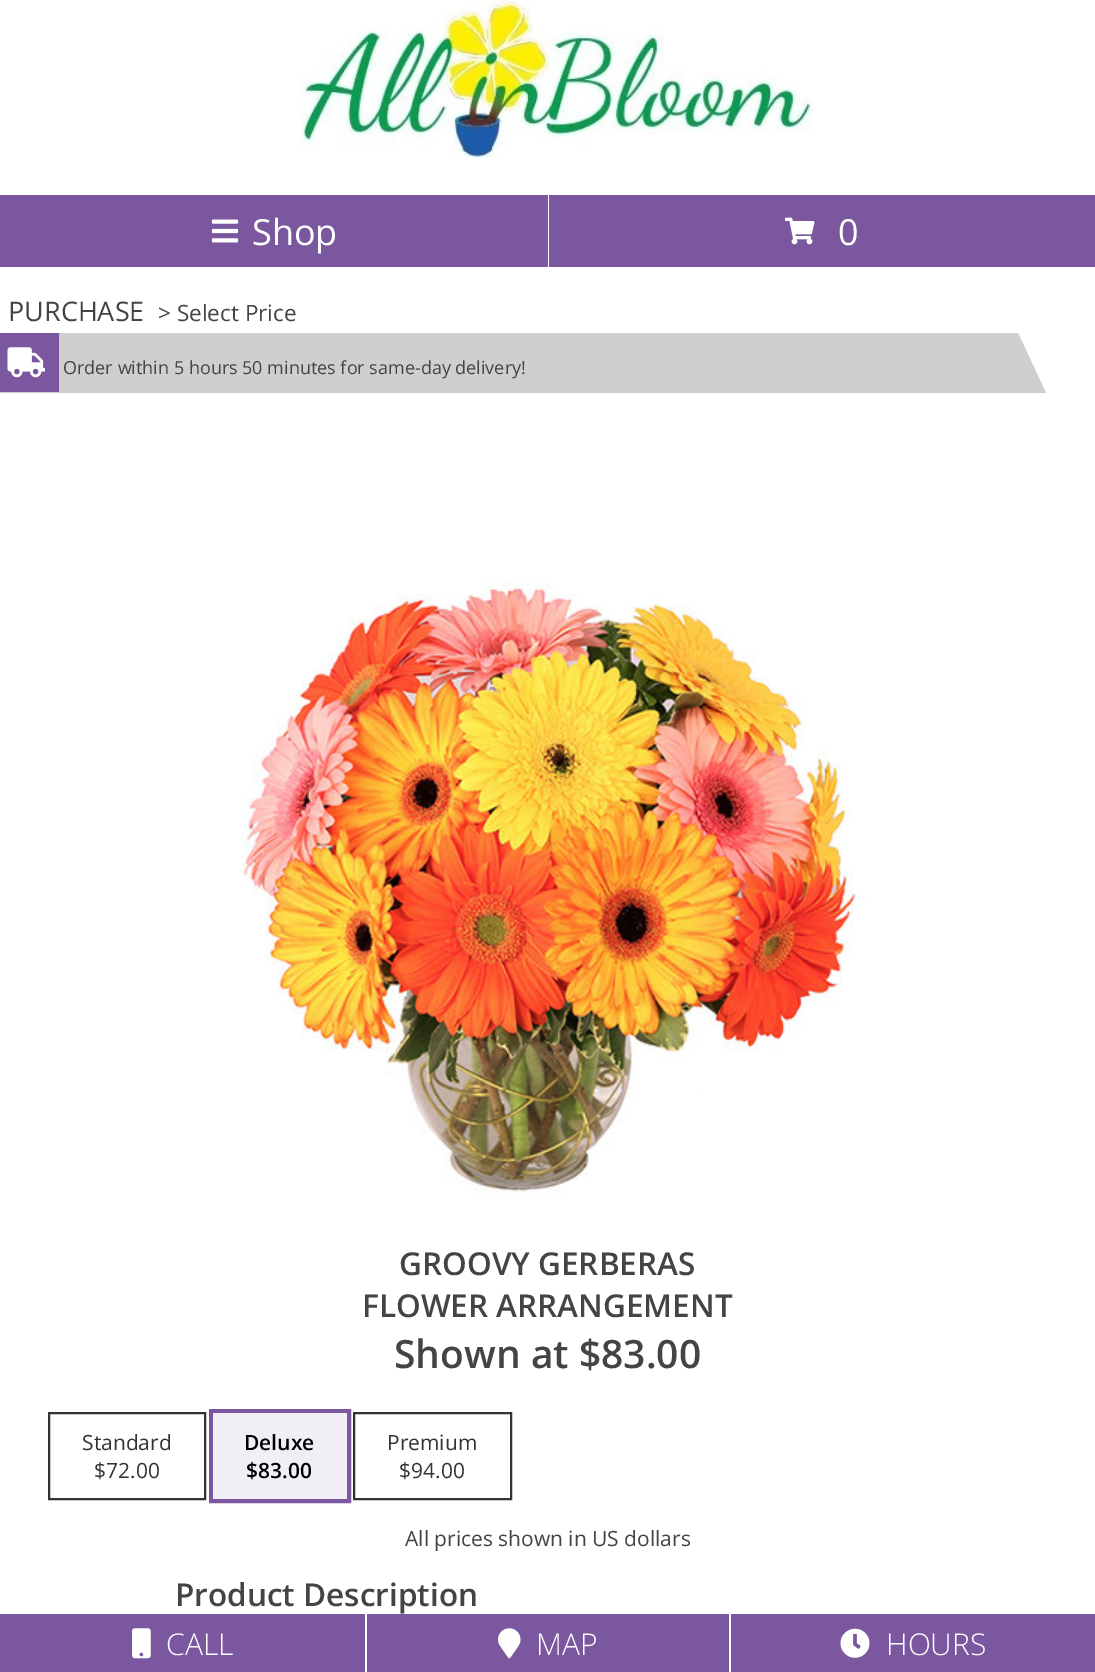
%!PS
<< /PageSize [1095 1672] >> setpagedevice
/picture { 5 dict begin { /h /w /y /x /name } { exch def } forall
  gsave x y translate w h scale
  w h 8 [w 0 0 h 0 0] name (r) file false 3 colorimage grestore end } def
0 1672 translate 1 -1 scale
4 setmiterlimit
1 setgray
0 0 1095 1672 rectfill
(img1.rgb) 301 0 512 159 picture
0.478 0.341 0.62 setrgbcolor
0 195 548 72 rectfill
(img2.rgb) 211 219 28 24 picture
/OpenSans-Regular [36 0 0 -36 0 0] selectfont
1 setgray
252 245 moveto (Shop) show
0.478 0.341 0.62 setrgbcolor
549 195 546 72 rectfill
(img3.rgb) 785 217 30 28 picture
1 setgray
838 245 moveto (0) show
/OpenSans-Regular [27 0 0 -27 0 0] selectfont
0.267 setgray
8 321 moveto (PURCHASE) show
/OpenSans-Regular [22.5 0 0 -22.5 0 0] selectfont
158 321 moveto (> Select Price) show
0.816 0.812 0.804 setrgbcolor
newpath 1046 393 moveto 0 393 lineto 0 333 lineto 1018 333 lineto closepath fill
0.478 0.341 0.62 setrgbcolor
0 333 59 59 rectfill
(img4.rgb) 7 347 38 31 picture
/OpenSans-Regular [18 0 0 -18 0 0] selectfont
0.267 setgray
63 374 moveto (Order within 5 hours 50 minutes for same-day delivery!) show
(img5.rgb) 241 582 624 612 picture
/OpenSans-SemiBold [31.5 0 0 -31.5 0 0] selectfont
399 1275 moveto (GROOVY GERBERAS) show
362 1317 moveto (FLOWER ARRANGEMENT) show
/OpenSans-SemiBold [39 0 0 -39 0 0] selectfont
394 1368 moveto (Shown at $83.00) show
0.2 setgray
2 setlinewidth
49 1413 156 86 rectstroke
/OpenSans-Regular [21 0 0 -21 0 0] selectfont
82 1450 moveto (Standard) show
94 1478 moveto ($72.00) show
0.478 0.341 0.62 setrgbcolor
5 setlinewidth
211.5 1411.5 137 89 rectstroke
0.945 0.933 0.961 setrgbcolor
213 1413 134 86 rectfill
/OpenSans-SemiBold [21 0 0 -21 0 0] selectfont
0 setgray
244 1450 moveto (Deluxe) show
246 1478 moveto ($83.00) show
0.2 setgray
2 setlinewidth
354 1413 157 86 rectstroke
/OpenSans-Regular [21 0 0 -21 0 0] selectfont
387 1450 moveto (Premium) show
399 1478 moveto ($94.00) show
0.267 setgray
405 1546 moveto (All prices shown in US dollars) show
/OpenSans-SemiBold [31.5 0 0 -31.5 0 0] selectfont
175 1606 moveto (Product Description) show
0.478 0.341 0.62 setrgbcolor
0 1614 365 58 rectfill
(img6.rgb) 132 1628 19 31 picture
/OpenSans-Light [30 0 0 -30 0 0] selectfont
1 setgray
166 1655 moveto (CALL) show
0.478 0.341 0.62 setrgbcolor
367 1614 362 58 rectfill
(img7.rgb) 498 1628 23 31 picture
1 setgray
536 1655 moveto (MAP) show
0.478 0.341 0.62 setrgbcolor
731 1614 364 58 rectfill
(img8.rgb) 840 1628 30 30 picture
1 setgray
886 1655 moveto (HOURS) show
showpage
